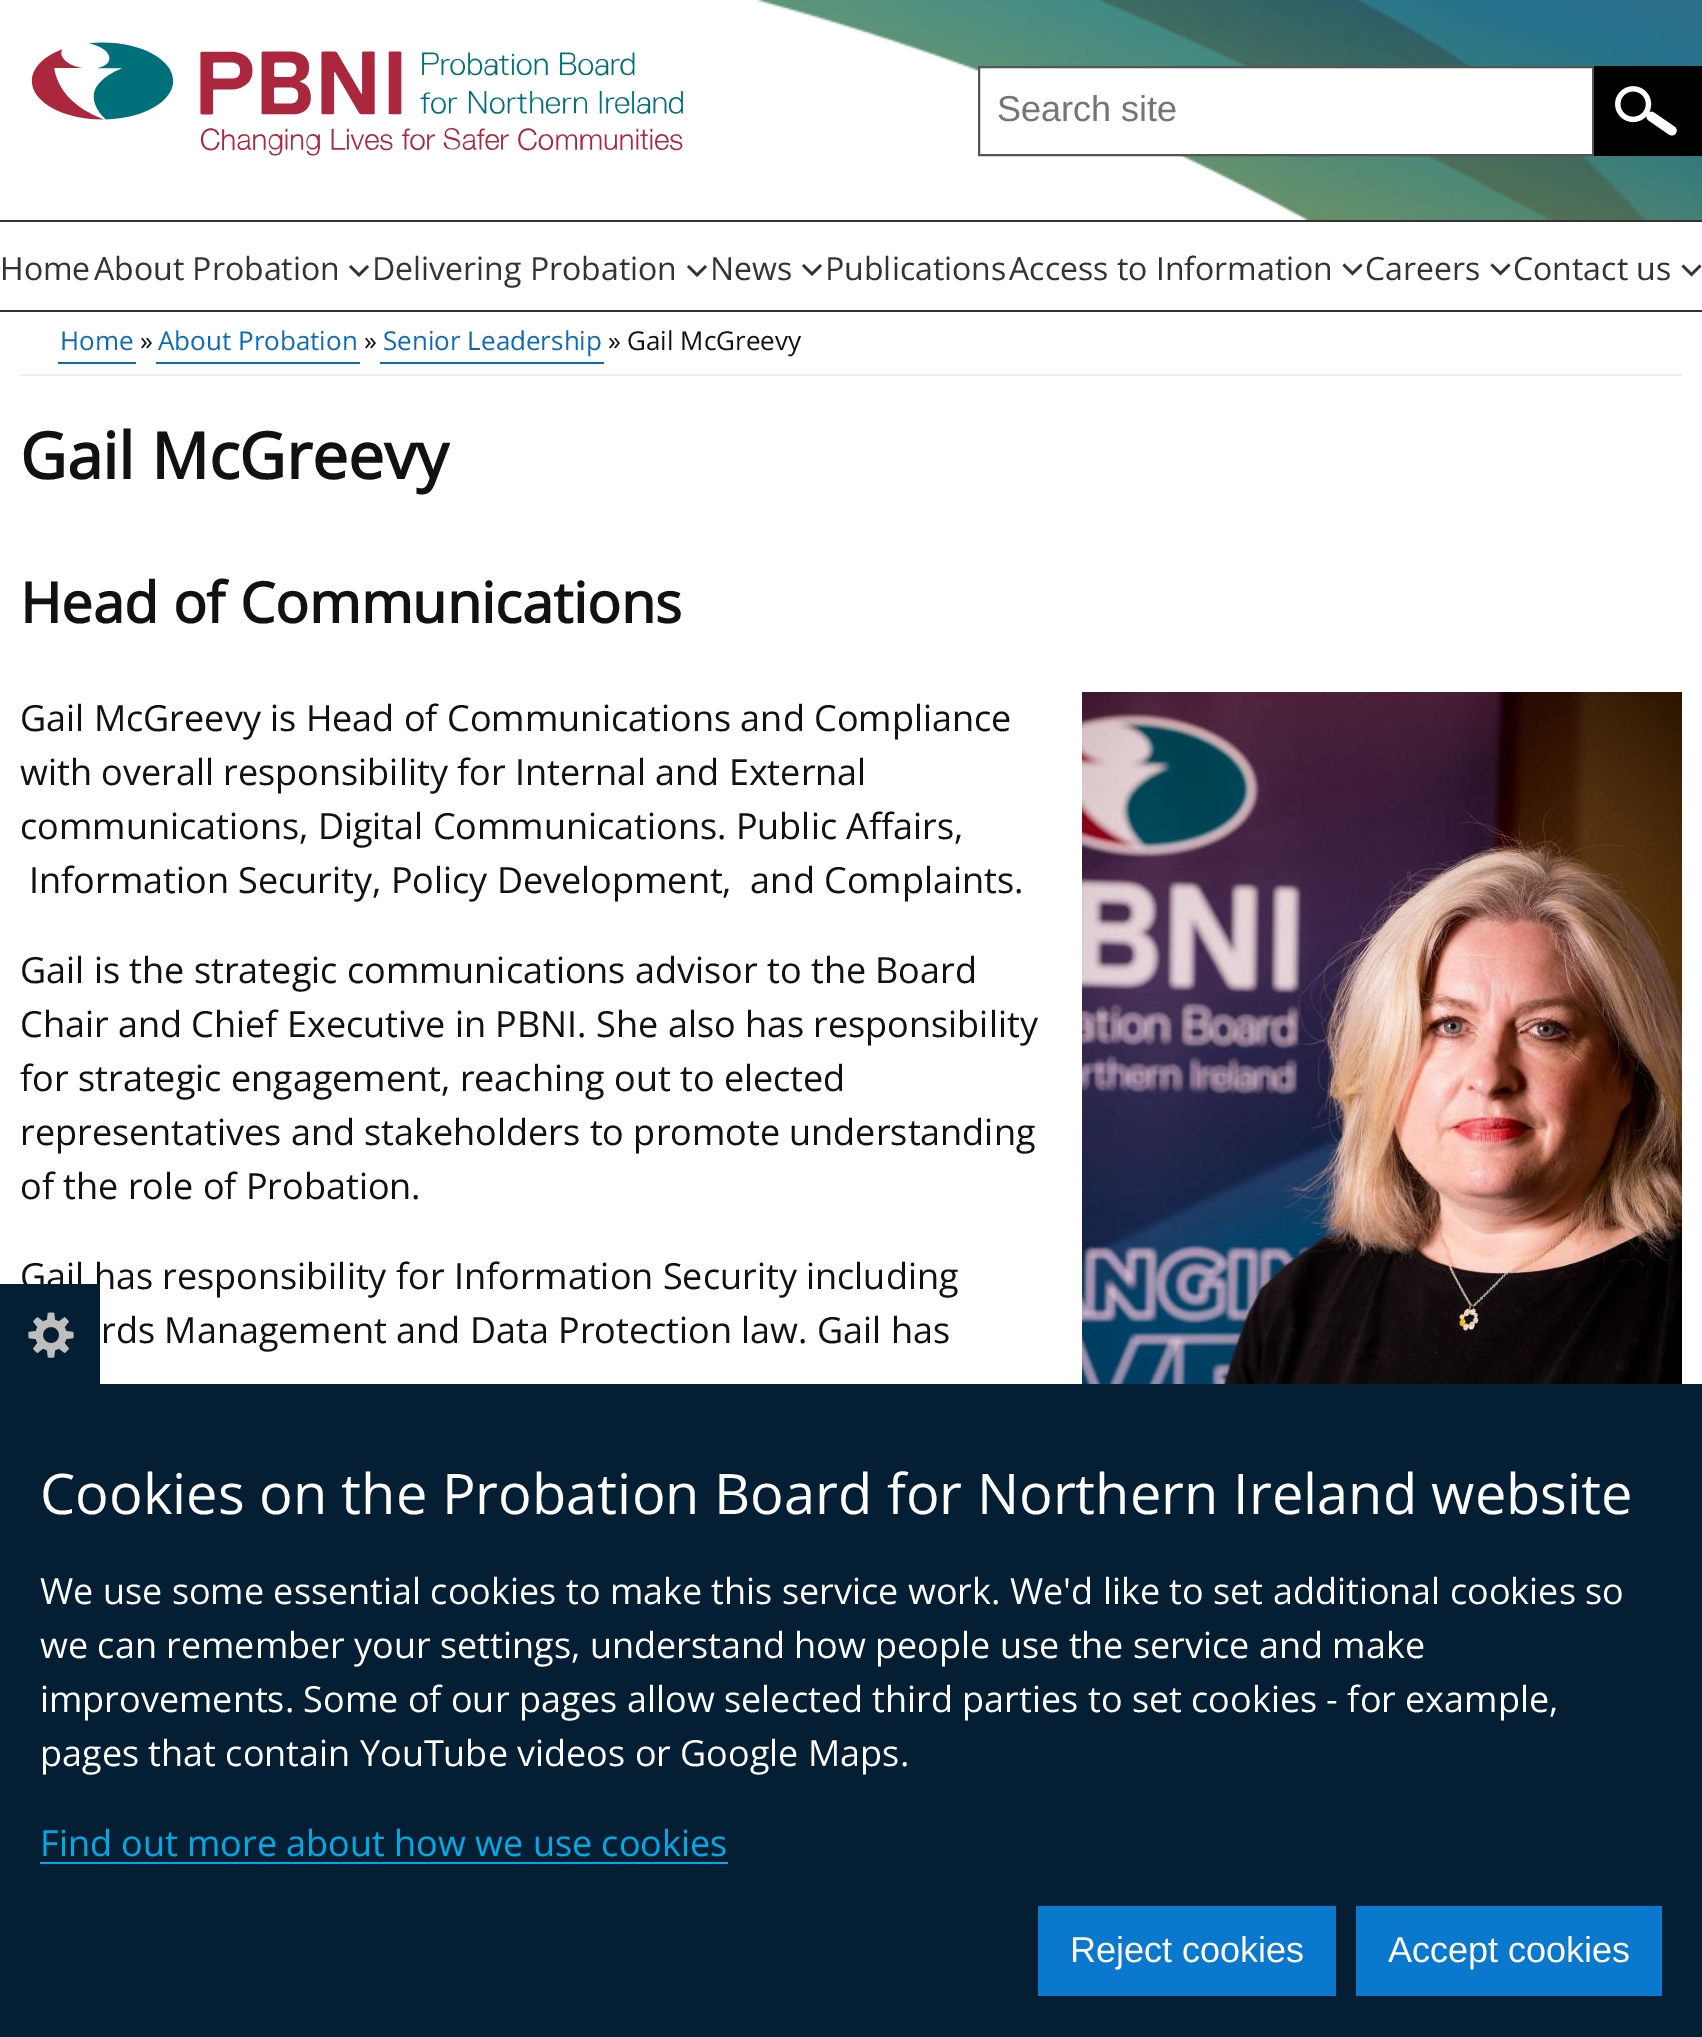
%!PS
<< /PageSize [1702 2037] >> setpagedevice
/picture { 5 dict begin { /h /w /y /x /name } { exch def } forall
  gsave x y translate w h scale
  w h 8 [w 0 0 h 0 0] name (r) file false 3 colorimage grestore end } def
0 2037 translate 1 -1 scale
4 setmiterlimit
1 setgray
0 0 1702 2037 rectfill
(img1.rgb) 757 0 945 220 picture
(img2.rgb) 31 42 652 114 picture
newpath 979 67 moveto 1593 67 lineto 1593 155 lineto 979 155 lineto closepath gsave fill grestore
0.333 setgray
2 setlinewidth
stroke
/LiberationSans-Regular [36 0 0 -36 0 0] selectfont
0.459 setgray
997 121 moveto (Search site) show
0 setgray
1594 66 108 90 rectfill
(img3.rgb) 1615 86 62 50 picture
0.2 setgray
0 220 1702 2 rectfill
0 310 1702 2 rectfill
/OpenSans-Regular [32 0 0 -32 0 0] selectfont
0 280 moveto (Home) show
94 280 moveto (About Probation) show
newpath 359 277 moveto 349 267 lineto 351 265 lineto 359 273 lineto 367 265 lineto 369 267 lineto closepath fill
372 280 moveto (Delivering Probation) show
newpath 697 277 moveto 687 267 lineto 689 265 lineto 697 273 lineto 705 265 lineto 707 267 lineto closepath fill
710 280 moveto (News) show
newpath 812 276 moveto 802 266 lineto 804 264 lineto 812 272 lineto 820 264 lineto 822 266 lineto closepath fill
825 280 moveto (Publications) show
1009 280 moveto (Access to Information) show
newpath 1352.5 275.5 moveto 1342.5 265.5 lineto 1344.5 263.5 lineto 1352.5 271.5 lineto 1360.5 263.5 lineto 1362.5 265.5 lineto closepath fill
1365 280 moveto (Careers) show
newpath 1500.5 275.5 moveto 1490.5 265.5 lineto 1492.5 263.5 lineto 1500.5 271.5 lineto 1508.5 263.5 lineto 1510.5 265.5 lineto closepath fill
1513 280 moveto (Contact us) show
newpath 1691.5 276.5 moveto 1681.5 266.5 lineto 1683.5 264.5 lineto 1691.5 272.5 lineto 1699.5 264.5 lineto 1701.5 266.5 lineto closepath fill
0.933 setgray
20 374 1662 2 rectfill
0.055 0.42 0.702 setrgbcolor
58 362 78 2 rectfill
/OpenSans-Regular [26 0 0 -26 0 0] selectfont
60 350 moveto (Home) show
0.067 setgray
140 350 moveto (») show
0.055 0.42 0.702 setrgbcolor
156 362 204 2 rectfill
158 350 moveto (About Probation) show
0.067 setgray
364 350 moveto (») show
0.055 0.42 0.702 setrgbcolor
380 362 224 2 rectfill
383 350 moveto (Senior Leadership) show
0.067 setgray
608 350 moveto (») show
627 350 moveto (Gail McGreevy) show
/OpenSans-Bold [64 0 0 -64 0 0] selectfont
20 479 moveto (Gail McGreevy) show
/OpenSans-Bold [56 0 0 -56 0 0] selectfont
20 623 moveto (Head of Communications) show
/OpenSans-Regular [36 0 0 -36 0 0] selectfont
20 731 moveto (Gail McGreevy is Head of Communications and Compliance) show
20 785 moveto (with overall responsibility for Internal and External) show
20 839 moveto (communications, Digital Communications. Public Affairs,) show
29 893 moveto (Information Security, Policy Development,  and Complaints.) show
20 983 moveto (Gail is the strategic communications advisor to the Board) show
20 1037 moveto (Chair and Chief Executive in PBNI. She also has responsibility) show
20 1091 moveto (for strategic engagement, reaching out to elected) show
20 1145 moveto (representatives and stakeholders to promote understanding) show
20 1199 moveto (of the role of Probation.) show
20 1289 moveto (Gail has responsibility for Information Security including) show
101 1343 moveto (rds Management and Data Protection law. Gail has) show
(img4.rgb) 1082 692 600 692 picture
0.016 0.118 0.204 setrgbcolor
0 1284 100 100 rectfill
(img5.rgb) 28 1312 46 46 picture
0 1384 1702 653 rectfill
/OpenSans-Regular [56 0 0 -56 0 0] selectfont
1 setgray
40 1514 moveto (Cookies on the Probation Board for Northern Ireland website) show
/OpenSans-Regular [36 0 0 -36 0 0] selectfont
40 1604 moveto (We use some essential cookies to make this service work. We'd like to set additional cookies so) show
40 1658 moveto (we can remember your settings, understand how people use the service and make) show
40 1712 moveto (improvements. Some of our pages allow selected third parties to set cookies - for example,) show
40 1766 moveto (pages that contain YouTube videos or Google Maps.) show
0 0.667 0.898 setrgbcolor
40 1856 moveto (Find out more about how we use cookies) show
40 1862 688 2 rectfill
0.039 0.471 0.804 setrgbcolor
1038 1906 298 90 rectfill
/LiberationSans-Regular [36 0 0 -36 0 0] selectfont
1 setgray
1070 1962 moveto (Reject cookies) show
0.039 0.471 0.804 setrgbcolor
1356 1906 306 90 rectfill
1 setgray
1388 1962 moveto (Accept cookies) show
showpage
